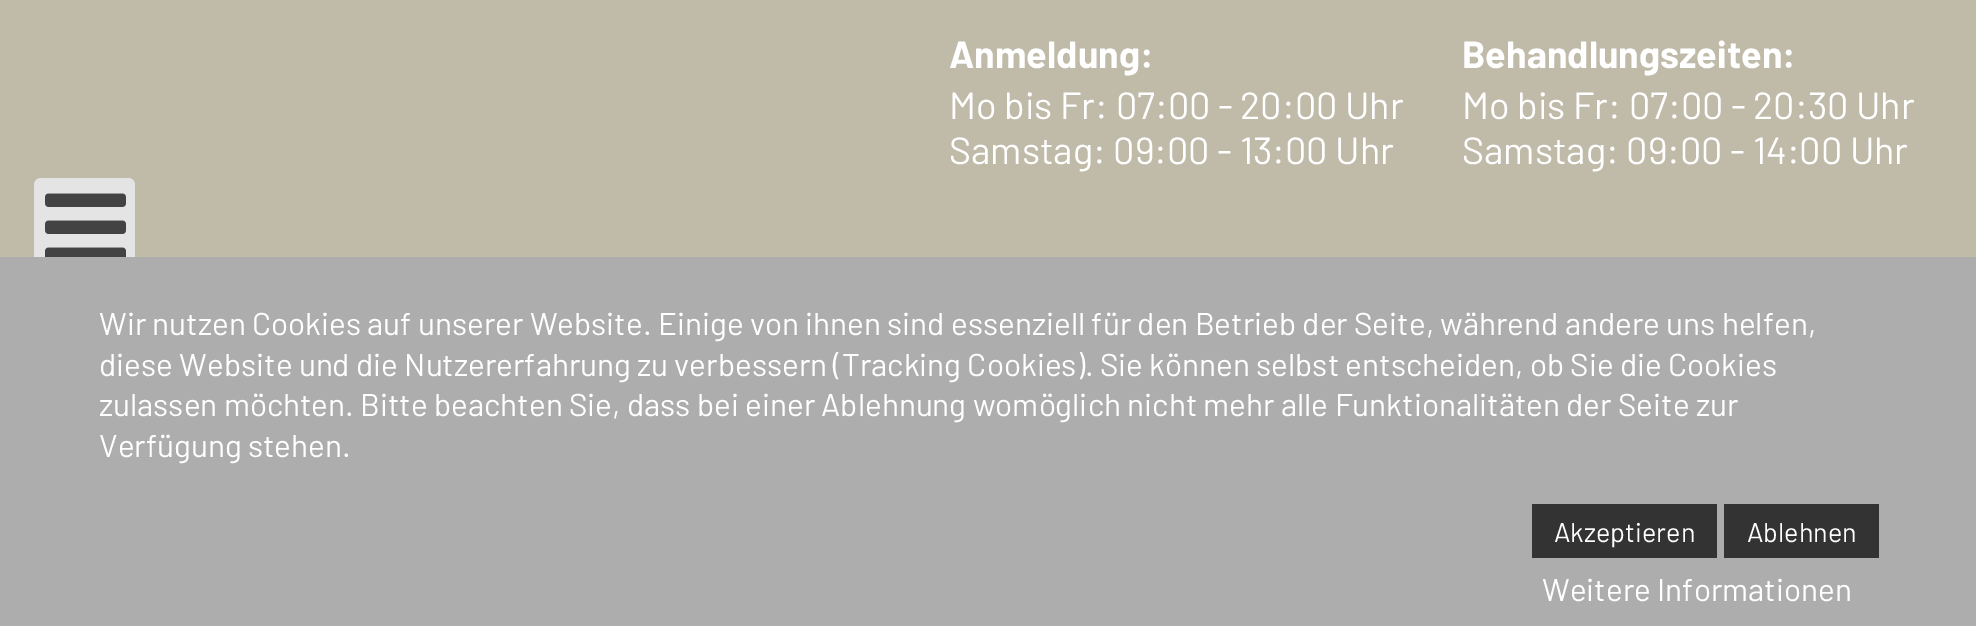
%!PS
<< /PageSize [1976 626] >> setpagedevice
/roundrect { 5 dict begin { /r /h /w /y /x } { exch def } forall
  x r add y moveto x w add y 2 copy h add r arct x w add y h add x 1 index r arct
  x y h add x y r arct x y 2 copy exch w add exch r arct closepath end } def
/picture { 5 dict begin { /h /w /y /x /name } { exch def } forall
  gsave x y translate w h scale
  w h 8 [w 0 0 h 0 0] name (r) file false 3 colorimage grestore end } def
0 626 translate 1 -1 scale
4 setmiterlimit
0.753 0.729 0.663 setrgbcolor
0 0 1976 626 rectfill
/Barlow-Bold [37.75 0 0 -37.75 0 0] selectfont
1 setgray
949 68 moveto (Anmeldung:) show
/Barlow-Regular [37.75 0 0 -37.75 0 0] selectfont
949 119 moveto (Mo bis Fr: 07:00 - 20:00 Uhr) show
949 164 moveto (Samstag: 09:00 - 13:00 Uhr) show
/Barlow-Bold [37.75 0 0 -37.75 0 0] selectfont
1462 68 moveto (Behandlungszeiten:) show
/Barlow-Regular [37.75 0 0 -37.75 0 0] selectfont
1462 119 moveto (Mo bis Fr: 07:00 - 20:30 Uhr) show
1462 164 moveto (Samstag: 09:00 - 14:00 Uhr) show
0.894 setgray
34 178 101 101 7 roundrect fill
(img1.rgb) 45 193 81 64 picture
0.678 setgray
0 257 1976 369 rectfill
/Barlow-Regular [31.5 0 0 -31.5 0 0] selectfont
1 setgray
99 335 moveto (Wir nutzen Cookies auf unserer Website. Einige von ihnen sind essenziell für den Betrieb der Seite, während andere uns helfen,) show
99 376 moveto (diese Website und die Nutzererfahrung zu verbessern \(Tracking Cookies\). Sie können selbst entscheiden, ob Sie die Cookies) show
99 416 moveto (zulassen möchten. Bitte beachten Sie, dass bei einer Ablehnung womöglich nicht mehr alle Funktionalitäten der Seite zur) show
99 457 moveto (Verfügung stehen.) show
0.2 setgray
1532 504 185 54 rectfill
/Barlow-Regular [27 0 0 -27 0 0] selectfont
1 setgray
1554 542 moveto (Akzeptieren) show
0.2 setgray
1724 504 155 54 rectfill
1 setgray
1747 542 moveto (Ablehnen) show
/Barlow-Regular [31.5 0 0 -31.5 0 0] selectfont
1542 601 moveto (Weitere Informationen) show
showpage
